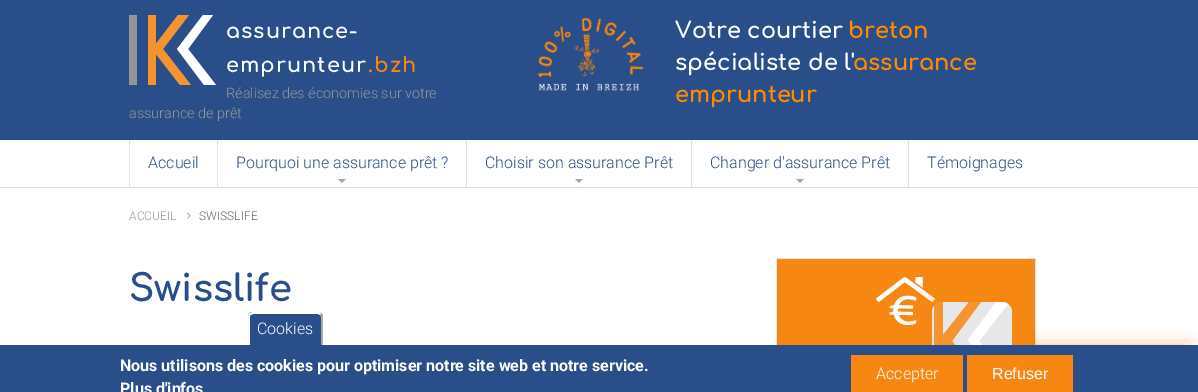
%!PS
<< /PageSize [1198 392] /PageUsesTransparency true >> setpagedevice
/alpha { dup .setfillconstantalpha .setstrokeconstantalpha } def
/roundrect { 5 dict begin { /r /h /w /y /x } { exch def } forall
  x r add y moveto x w add y 2 copy h add r arct x w add y h add x 1 index r arct
  x y h add x y r arct x y 2 copy exch w add exch r arct closepath end } def
/shadow { 12 dict begin { /a /b /q /h /w /y /x } { exch def } forall gsave /was 0 def
  9 -2 -9 { dup b mul 4 div /e exch def 1 sub .425 mul 2.718 exch exp 1 add a .99 .min exch div /now exch def
    1 1 now sub 1 was sub div sub alpha /was now def
    w h .min e 2 mul add 0 gt { x e sub y e sub w e 2 mul add h e 2 mul add
      q e add b .6 mul add w h .min 2 div e add .min 0 .max roundrect fill } if } for grestore end } def
/picture { 5 dict begin { /h /w /y /x /name } { exch def } forall
  gsave x y translate w h scale
  w h 8 [w 0 0 h 0 0] name (r) file false 3 colorimage grestore end } def
0 .pushpdf14devicefilter
0 392 translate 1 -1 scale
4 setmiterlimit
1 setgray
0 0 1198 392 rectfill
0.161 0.306 0.537 setrgbcolor
0 0 1198 140 rectfill
0.576 0.584 0.596 setrgbcolor
129 15 8 70 rectfill
0.961 0.576 0.192 setrgbcolor
148 15 8 70 rectfill
newpath 178 15 moveto 189 15 lineto 163 49 lineto 191 85 lineto 180 85 lineto 152 49 lineto closepath fill
1 setgray
newpath 203 15 moveto 213 15 lineto 188 49 lineto 216 85 lineto 204 85 lineto 177 49 lineto closepath fill
/Comfortaa-Bold [20.75 0 0 -20.75 0 0] selectfont
226 38 moveto 1 0 (assurance-) ashow
226 72 moveto 1 0 (emprunteur) ashow
0.965 0.529 0.071 setrgbcolor
368 72 moveto 1 0 (.bzh) ashow
/Roboto-Light [14.4 0 0 -14.4 0 0] selectfont
0.576 0.584 0.596 setrgbcolor
226 98 moveto (Réalisez des économies sur votre) show
129 118 moveto (assurance de prêt) show
(img1.rgb) 537 17 107 74 picture
/Comfortaa-Bold [22.5 0 0 -22.5 0 0] selectfont
1 setgray
675 38 moveto (Votre courtier) show
1 0.549 0 setrgbcolor
848 38 moveto (breton) show
1 setgray
675 70 moveto (spécialiste de l') show
1 0.549 0 setrgbcolor
853 70 moveto (assurance) show
675 102 moveto (emprunteur) show
0.878 setgray
0 187 1198 1 rectfill
129 140 1 47 rectfill
/Roboto-Light [16 0 0 -16 0 0] selectfont
0.161 0.306 0.537 setrgbcolor
148 168 moveto (Accueil) show
0.878 setgray
217 140 1 47 rectfill
0.161 0.306 0.537 setrgbcolor
236 168 moveto (Pourquoi une assurance prêt ?) show
0.58 0.655 0.769 setrgbcolor
newpath 338 179 moveto 346 179 lineto 342 183 lineto closepath fill
0.878 setgray
466 140 1 47 rectfill
0.161 0.306 0.537 setrgbcolor
485 168 moveto (Choisir son assurance Prêt) show
0.58 0.655 0.769 setrgbcolor
newpath 575 179 moveto 583 179 lineto 579 183 lineto closepath fill
0.878 setgray
691 140 1 47 rectfill
0.161 0.306 0.537 setrgbcolor
710 168 moveto (Changer d'assurance Prêt) show
0.58 0.655 0.769 setrgbcolor
newpath 796 179 moveto 804 179 lineto 800 183 lineto closepath fill
0.878 setgray
908 140 1 47 rectfill
0.161 0.306 0.537 setrgbcolor
927 168 moveto (Témoignages) show
/Roboto-Light [12 0 0 -12 0 0] selectfont
0.576 0.584 0.596 setrgbcolor
129 220 moveto (ACCUEIL) show
(img2.rgb) 187 212 4 7 picture
0.4 setgray
199 220 moveto (SWISSLIFE) show
/Comfortaa-Bold [37 0 0 -37 0 0] selectfont
0.161 0.306 0.537 setrgbcolor
129 301 moveto (Swisslife) show
0.902 setgray
776.5 258.5 259 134 rectstroke
0.965 0.529 0.071 setrgbcolor
777 259 258 86 rectfill
(img3.rgb) 876 277 60 48 picture
916 351 270 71 0 10 1 shadow
932 302 80 80 10 10 1 shadow
0.906 setgray
932 302 80 80 10 roundrect fill
gsave
932 302 80 80 10 roundrect clip newpath
0.961 0.576 0.192 setrgbcolor
934 302 9 43 rectfill
grestore
0.961 0.576 0.192 setrgbcolor
newpath 969 302 moveto 981 302 lineto 952 341 lineto 983 382 lineto 971 382 lineto 939 340 lineto closepath fill
1 setgray
newpath 996 302 moveto 968 340 lineto 998 382 lineto 1002 382 1006 382 1009 379 curveto 979 341 lineto 1008 304 lineto 1006 303 1004 302 1002 302 curveto closepath fill
0.161 0.306 0.537 setrgbcolor
0 345 1198 47 rectfill
newpath 253 312 moveto 318 312 lineto 321 312 323 314 323 317 curveto 323 345 lineto 248 345 lineto 248 317 lineto 248 314 250 312 253 312 curveto closepath fill
1 setgray
newpath 253 314 moveto 251 315 lineto 249 314 lineto 252 312 lineto 319 312 lineto 322 313 lineto 320 315 lineto 318 314 lineto closepath fill
0.667 setgray
newpath 323 315.5 moveto 323 345 lineto 321 345 lineto 321 317 lineto 321 316 320.5 315.5 320 315 curveto 321.5 313.5 lineto closepath fill
1 setgray
newpath 250.5 315 moveto 249 313.5 lineto 248.5 314.5 248 315.5 248 317 curveto 248 345 lineto 250 345 lineto 250 317 lineto 250 316 250 315.5 250.5 315 curveto closepath fill
/Roboto-Light [16 0 0 -16 0 0] selectfont
257 334 moveto (Cookies) show
/Roboto-Bold [16 0 0 -16 0 0] selectfont
120 371 moveto (Nous utilisons des cookies pour optimiser notre site web et notre service.) show
120 394 moveto (Plus d'infos) show
0.965 0.529 0.071 setrgbcolor
851 355 112 37 rectfill
/Roboto-Light [16 0 0 -16 0 0] selectfont
1 setgray
876 379 moveto (Accepter) show
0.965 0.529 0.071 setrgbcolor
967 355 106 37 rectfill
/LiberationSans-Regular [16 0 0 -16 0 0] selectfont
1 setgray
992 379 moveto (Refuser) show
.poppdf14devicefilter showpage
